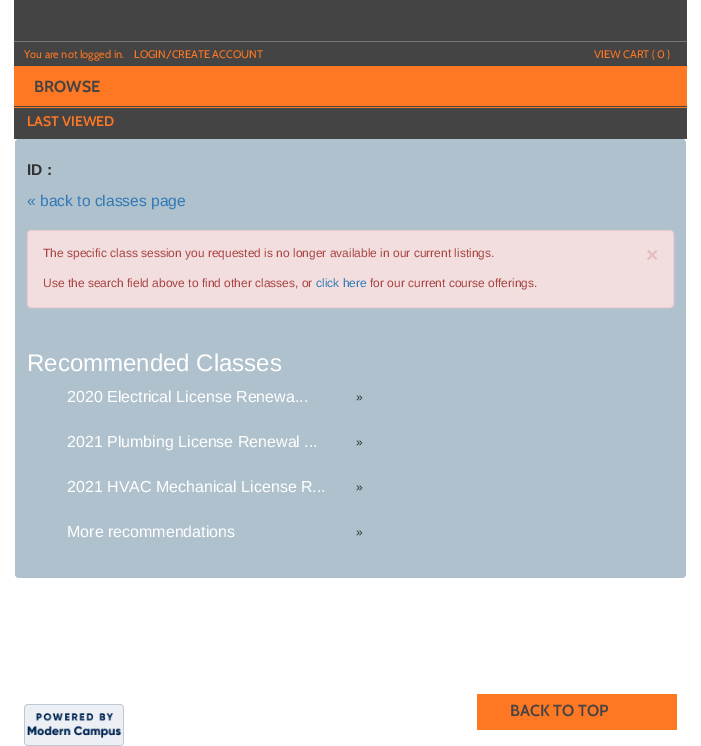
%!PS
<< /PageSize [701 746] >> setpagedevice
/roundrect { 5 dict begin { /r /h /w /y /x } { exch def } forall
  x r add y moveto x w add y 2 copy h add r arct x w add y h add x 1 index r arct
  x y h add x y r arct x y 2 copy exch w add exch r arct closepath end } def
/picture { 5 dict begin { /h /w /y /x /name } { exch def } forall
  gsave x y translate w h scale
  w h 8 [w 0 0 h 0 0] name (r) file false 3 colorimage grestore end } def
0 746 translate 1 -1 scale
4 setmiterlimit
1 setgray
0 0 701 746 rectfill
0.267 setgray
14 0 673 65 rectfill
0.439 0.471 0.486 setrgbcolor
14 41 673 1 rectfill
0.231 0.255 0.267 setrgbcolor
14 65 673 1 rectfill
/Cabin-Regular [11 0 0 -11 0 0] selectfont
0.996 0.467 0.133 setrgbcolor
24 58 moveto (You are not logged in.) show
134 58 moveto (LOGIN/CREATE ACCOUNT) show
594 58 moveto (VIEW CART \( 0 \)) show
14 66 673 40 rectfill
0.267 setgray
14 106 673 1 rectfill
/Cabin-Bold [16 0 0 -16 0 0] selectfont
34 92 moveto (BROWSE) show
14 108 673 31 rectfill
0.996 0.467 0.133 setrgbcolor
14 107 673 1 rectfill
/Cabin-SemiBold [14 0 0 -14 0 0] selectfont
27 126 moveto (LAST VIEWED) show
0.686 0.757 0.8 setrgbcolor
15 139 671 439 4 roundrect fill
/LiberationSans-Bold [15.6 0 0 -15.6 0 0] selectfont
0.2 setgray
27 175 moveto (ID :) show
/LiberationSans-Regular [15.6 0 0 -15.6 0 0] selectfont
0.2 0.478 0.718 setrgbcolor
27 206 moveto (« back to classes page) show
0.949 0.871 0.871 setrgbcolor
27.5 230.5 646 77 3.5 roundrect gsave fill grestore
0.922 0.8 0.82 setrgbcolor
stroke
/LiberationSans-Regular [12 0 0 -12 0 0] selectfont
0.663 0.267 0.259 setrgbcolor
43 257 moveto (The specific class session you requested is no longer available in our current listings.) show
/LiberationSans-Bold [21 0 0 -21 0 0] selectfont
0.89 0.749 0.749 setrgbcolor
646 262 moveto (×) show
/LiberationSans-Regular [12 0 0 -12 0 0] selectfont
0.663 0.267 0.259 setrgbcolor
43 287 moveto (Use the search field above to find other classes, or) show
0.2 0.478 0.718 setrgbcolor
316 287 moveto (click here) show
0.663 0.267 0.259 setrgbcolor
370 287 moveto (for our current course offerings.) show
/LiberationSans-Regular [24 0 0 -24 0 0] selectfont
1 setgray
27 371 moveto (Recommended Classes) show
/LiberationSans-Regular [16 0 0 -16 0 0] selectfont
67 402 moveto (2020 Electrical License Renewa...) show
/LiberationSans-Regular [12 0 0 -12 0 0] selectfont
0.2 setgray
356 401 moveto (») show
/LiberationSans-Regular [16 0 0 -16 0 0] selectfont
1 setgray
67 447 moveto (2021 Plumbing License Renewal ...) show
/LiberationSans-Regular [12 0 0 -12 0 0] selectfont
0.2 setgray
356 446 moveto (») show
/LiberationSans-Regular [16 0 0 -16 0 0] selectfont
1 setgray
67 492 moveto (2021 HVAC Mechanical License R...) show
/LiberationSans-Regular [12 0 0 -12 0 0] selectfont
0.2 setgray
356 491 moveto (») show
/LiberationSans-Regular [16 0 0 -16 0 0] selectfont
1 setgray
67 537 moveto (More recommendations) show
/LiberationSans-Regular [12 0 0 -12 0 0] selectfont
0.2 setgray
356 536 moveto (») show
(img1.rgb) 24 704 100 42 picture
0.996 0.467 0.133 setrgbcolor
477 694 200 36 rectfill
/Cabin-SemiBold [16 0 0 -16 0 0] selectfont
0.267 setgray
510 716 moveto (BACK TO TOP) show
showpage
